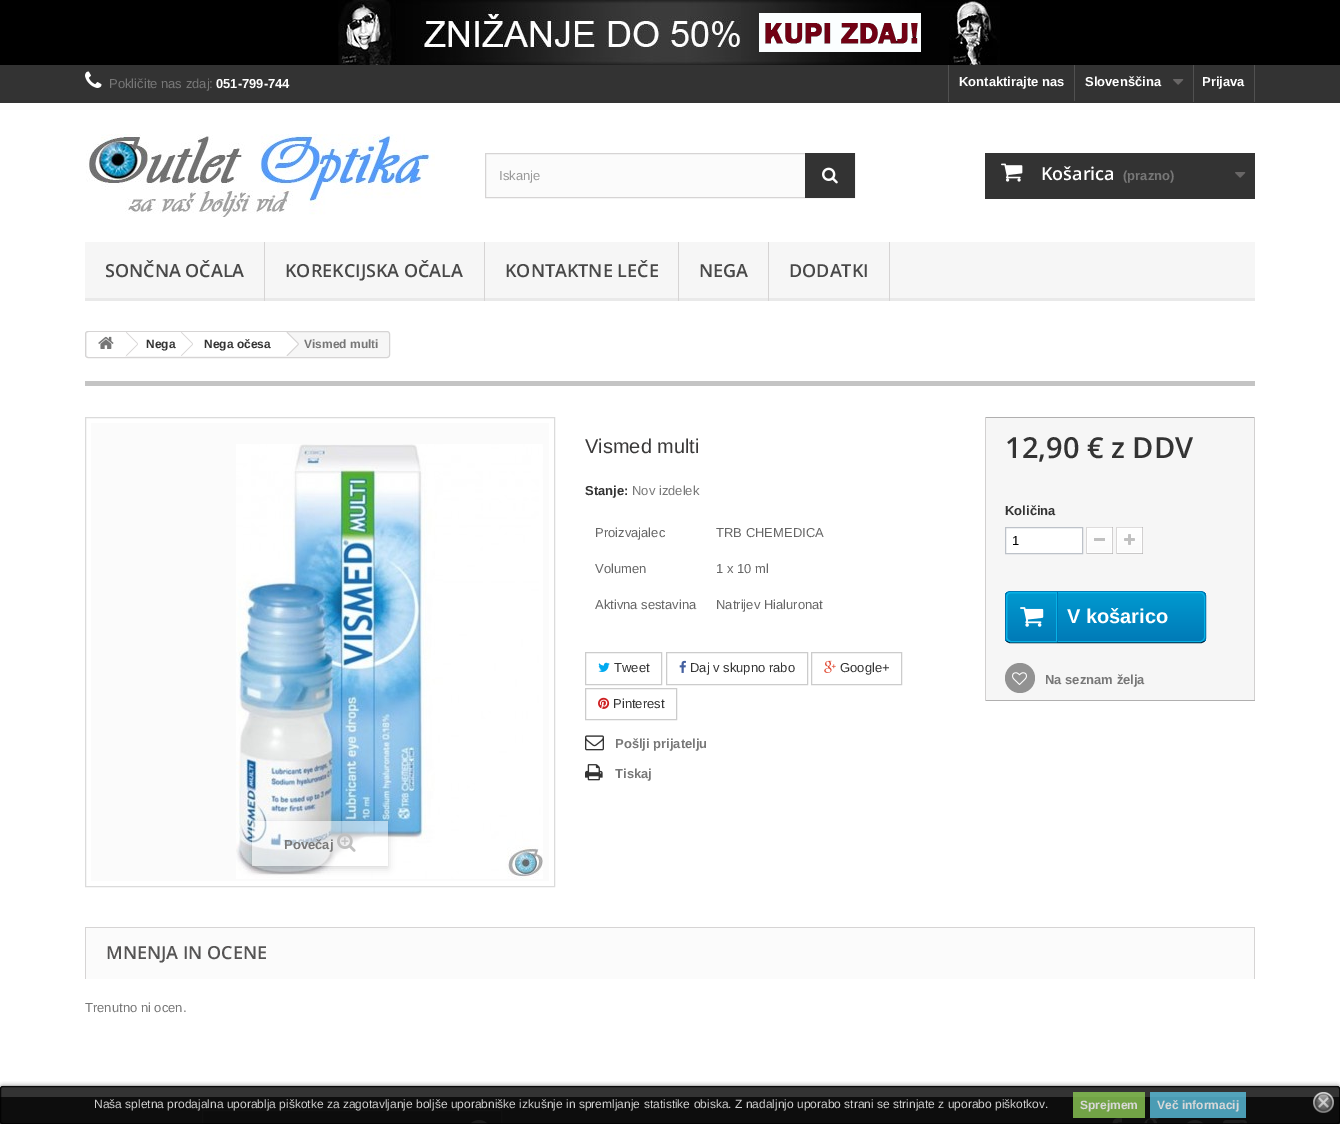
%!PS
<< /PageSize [1340 1124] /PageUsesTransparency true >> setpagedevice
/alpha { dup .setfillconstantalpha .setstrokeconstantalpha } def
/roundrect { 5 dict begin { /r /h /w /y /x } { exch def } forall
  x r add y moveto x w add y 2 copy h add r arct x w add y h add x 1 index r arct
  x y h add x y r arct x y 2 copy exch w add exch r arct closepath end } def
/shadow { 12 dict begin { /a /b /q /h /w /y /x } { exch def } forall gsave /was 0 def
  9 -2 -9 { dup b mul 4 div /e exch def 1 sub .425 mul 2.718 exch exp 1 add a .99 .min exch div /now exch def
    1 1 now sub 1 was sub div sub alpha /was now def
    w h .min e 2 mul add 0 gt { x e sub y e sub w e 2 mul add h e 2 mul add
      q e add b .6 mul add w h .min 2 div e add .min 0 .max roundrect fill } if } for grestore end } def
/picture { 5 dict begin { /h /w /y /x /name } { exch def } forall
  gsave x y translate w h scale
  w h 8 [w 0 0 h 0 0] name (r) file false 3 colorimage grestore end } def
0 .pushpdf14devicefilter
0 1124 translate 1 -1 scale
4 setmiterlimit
1 setgray
0 0 1340 1124 rectfill
0 setgray
0 0 1340 65 rectfill
(img1.rgb) 338 0 662 65 picture
0.2 setgray
0 65 1340 38 rectfill
(img2.rgb) 85 71 17 17 picture
/LiberationSans-Regular [13 0 0 -13 0 0] selectfont
0.467 setgray
109 88 moveto (Pokličite nas zdaj:) show
/LiberationSans-Bold [13 0 0 -13 0 0] selectfont
1 setgray
216 88 moveto (051-799-744) show
0.318 setgray
948 65 1 37 rectfill
1 setgray
959 86 moveto (Kontaktirajte nas) show
0.318 setgray
1074 65 1 36 rectfill
1 setgray
1085 86 moveto (Slovenščina) show
(img3.rgb) 1173 79 11 6 picture
0.318 setgray
1254 65 1 37 rectfill
1193 65 1 37 rectfill
1 setgray
1202 86 moveto (Prijava) show
(img4.rgb) 86 134 349 83 picture
0.984 setgray
486 154 319 43 rectfill
0.839 0.831 0.831 setrgbcolor
485.5 153.5 369 44 rectstroke
/LiberationSans-Regular [13 0 0 -13 0 0] selectfont
0.6 setgray
499 180 moveto (Iskanje) show
0.2 setgray
805 153 50 45 rectfill
(img5.rgb) 822 167 16 17 picture
985 153 270 46 rectfill
(img6.rgb) 1001 163 22 19 picture
/OpenSans-SemiBold [18 0 0 -18 0 0] selectfont
1 setgray
1041 180 moveto (Košarica) show
/LiberationSans-Bold [13 0 0 -13 0 0] selectfont
0.467 setgray
1123 180 moveto (\(prazno\)) show
(img3.rgb) 1235 172 11 6 picture
0.965 setgray
85 242 1170 56 rectfill
0.914 setgray
85 298 1170 3 rectfill
0.839 0.831 0.831 setrgbcolor
264 242 1 59 rectfill
/OpenSans-SemiBold [18 0 0 -18 0 0] selectfont
0.282 setgray
105 277 moveto (SONČNA OČALA) show
0.839 0.831 0.831 setrgbcolor
484 242 1 59 rectfill
0.282 setgray
285 277 moveto (KOREKCIJSKA OČALA) show
0.839 0.831 0.831 setrgbcolor
678 242 1 59 rectfill
0.282 setgray
505 277 moveto (KONTAKTNE LEČE) show
0.839 0.831 0.831 setrgbcolor
768 242 1 59 rectfill
0.282 setgray
699 277 moveto (NEGA) show
0.839 0.831 0.831 setrgbcolor
889 242 1 59 rectfill
0.282 setgray
789 277 moveto (DODATKI) show
0.247 setgray
0 1097 1340 27 rectfill
0.235 setgray
newpath 202.5 1110.5 moveto 501.5 1110.5 lineto 501.5 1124.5 lineto 202.5 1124.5 lineto closepath gsave fill grestore
0.318 setgray
stroke
(img20.rgb) 470 1120 18 4 picture
(img21.rgb) 1112 1118 10 6 picture
(img22.rgb) 1144 1118 15 6 picture
(img23.rgb) 1186 1120 18 4 picture
(img24.rgb) 1223 1120 24 4 picture
gsave
newpath 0 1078 moveto 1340 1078 lineto 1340 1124 lineto 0 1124 lineto closepath 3 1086 moveto 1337 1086 lineto 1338.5 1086 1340 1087.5 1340 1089 curveto 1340 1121 lineto 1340 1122.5 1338.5 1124 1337 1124 curveto 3 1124 lineto 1.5 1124 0 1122.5 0 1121 curveto 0 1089 lineto 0 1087.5 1.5 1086 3 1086 curveto closepath eoclip newpath
0 setgray
0 1087 1340 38 3 2.5 0.8 shadow
grestore
0.8 alpha
0 setgray
0 1086 1340 38 3 roundrect fill
0.5 1086.5 1339 37 2.5 roundrect stroke
/LiberationSans-Regular [12 0 0 -12 0 0] selectfont
1 alpha
0.812 setgray
94 1108 moveto (Naša spletna prodajalna uporablja piškotke za zagotavljanje boljše uporabniške izkušnje in spremljanje statistike obiska. Z nadaljnjo uporabo strani se strinjate z uporabo piškotkov.) show
0.8 alpha
0.545 0.788 0.329 setrgbcolor
1073 1092 72 26 rectfill
/LiberationSans-Bold [12 0 0 -12 0 0] selectfont
1 alpha
0.851 setgray
1080 1109 moveto (Sprejmem) show
0.8 alpha
0.357 0.753 0.871 setrgbcolor
1150 1092 96 26 rectfill
1 alpha
0.851 setgray
1157 1109 moveto (Več informacij) show
(img7.rgb) 1313 1092 21 21 picture
0.965 setgray
85.5 331.5 304 26 2.5 roundrect gsave fill grestore
0.839 0.831 0.831 setrgbcolor
stroke
1 setgray
newpath 90 332 moveto 125 332 lineto 125 357 lineto 90 357 lineto 88.5 357 87 355.5 87 354 curveto 87 335 lineto 87 333.5 88.5 332 90 332 curveto closepath fill
(img8.rgb) 98 336 16 13 picture
125 332 57 24 rectfill
0.839 0.831 0.831 setrgbcolor
newpath 126.5 332 moveto 138 343.5 lineto 137.5 344 lineto 126 332.5 lineto closepath 137.5 344 moveto 138 344.5 lineto 126.5 356 lineto 126 355.5 lineto closepath fill
0.2 setgray
146 348 moveto (Nega) show
1 setgray
newpath 192.5 332.5 moveto 202.5 342.5 lineto 203 343.5 203 344.5 202.5 345.5 curveto 192.5 355.5 lineto 191.5 356 190.5 356 189.5 355.5 curveto 179.5 345.5 lineto 179 344.5 179 343.5 179.5 342.5 curveto 189.5 332.5 lineto 190.5 332 191.5 332 192.5 332.5 curveto closepath fill
182 332 104 24 rectfill
0.839 0.831 0.831 setrgbcolor
newpath 181.5 332 moveto 193 343.5 lineto 192.5 344 lineto 181 332.5 lineto closepath 192.5 344 moveto 193 344.5 lineto 181.5 356 lineto 181 355.5 lineto closepath fill
0.2 setgray
204 348 moveto (Nega očesa) show
1 setgray
newpath 288 332.5 moveto 298 342.5 lineto 299 343.5 299 344.5 298 345.5 curveto 288 355.5 lineto 287.5 356 286 356 285.5 355.5 curveto 275.5 345.5 lineto 274.5 344.5 274.5 343.5 275.5 342.5 curveto 285.5 332.5 lineto 286 332 287.5 332 288 332.5 curveto closepath fill
0.839 0.831 0.831 setrgbcolor
newpath 287.5 332 moveto 299 343.5 lineto 298 344 lineto 286.5 332.5 lineto closepath 298 344 moveto 299 344.5 lineto 287.5 356 lineto 286.5 355.5 lineto closepath fill
0.467 setgray
304 348 moveto (Vismed multi) show
0.769 setgray
85 381 1170 5 rectfill
/LiberationSans-Regular [20 0 0 -20 0 0] selectfont
0.227 0.224 0.224 setrgbcolor
585 453 moveto (Vismed multi) show
/LiberationSans-Bold [13 0 0 -13 0 0] selectfont
0.2 setgray
585 495 moveto (Stanje:) show
/LiberationSans-Regular [13 0 0 -13 0 0] selectfont
0.467 setgray
632 495 moveto (Nov izdelek) show
0.4 setgray
595 537 moveto (Proizvajalec) show
716 537 moveto (TRB CHEMEDICA) show
595 573 moveto (Volumen) show
716 573 moveto (1 x 10 ml) show
595 609 moveto (Aktivna sestavina) show
716 609 moveto (Natrijev Hialuronat) show
0.8 setgray
585.5 652.5 76 32 rectstroke
(img9.rgb) 598 662 12 10 picture
0.2 setgray
614 672 moveto (Tweet) show
0.8 setgray
666.5 652.5 141 32 rectstroke
(img10.rgb) 679 660 7 13 picture
0.2 setgray
690 672 moveto (Daj v skupno rabo) show
0.8 setgray
811.5 652.5 90 32 rectstroke
(img11.rgb) 824 660 12 13 picture
0.2 setgray
840 672 moveto (Google+) show
0.8 setgray
585.5 688.5 91 31 rectstroke
(img12.rgb) 598 697 12 12 picture
0.2 setgray
613 708 moveto (Pinterest) show
(img13.rgb) 585 735 19 16 picture
/LiberationSans-Bold [13 0 0 -13 0 0] selectfont
0.467 setgray
615 748 moveto (Pošlji prijatelju) show
(img14.rgb) 585 764 18 17 picture
615 778 moveto (Tiskaj) show
0.965 setgray
986 418 268 282 rectfill
0.69 0.686 0.686 setrgbcolor
985 417 270 1 rectfill
0.824 0.816 0.816 setrgbcolor
1254 417 1 284 rectfill
0.69 0.686 0.686 setrgbcolor
985 700 270 1 rectfill
0.824 0.816 0.816 setrgbcolor
985 417 1 284 rectfill
/OpenSans-SemiBold [29 0 0 -29 0 0] selectfont
0.2 setgray
1005 458 moveto (12,90 € z DDV) show
/LiberationSans-Bold [13 0 0 -13 0 0] selectfont
1005 515 moveto (Količina) show
1 setgray
newpath 1005.5 527.5 moveto 1082.5 527.5 lineto 1082.5 553.5 lineto 1005.5 553.5 lineto closepath gsave fill grestore
0.741 0.761 0.788 setrgbcolor
stroke
/LiberationSans-Regular [13 0 0 -13 0 0] selectfont
0 setgray
1012 545 moveto (1) show
0.871 0.863 0.863 setrgbcolor
1086 527 27 1 rectfill
0.757 0.749 0.749 setrgbcolor
1112 527 1 27 rectfill
0.71 0.706 0.706 setrgbcolor
1086 553 27 1 rectfill
0.855 0.847 0.847 setrgbcolor
1086 527 1 27 rectfill
gsave newpath 1088 529 moveto 1111 529 lineto 1111 552 lineto 1088 552 lineto closepath clip newpath
<< /ShadingType 2 /ColorSpace /DeviceRGB /Coords [1100 529 1100 552] /Extend [true true] /Function << /FunctionType 2 /Domain [0 1] /C0 [1 1 1] /C1 [0.984 0.984 0.984] /N 1 >> >> shfill grestore
1 setgray
1087.5 528.5 24 24 rectstroke
0.753 setgray
1094 538 11 3 rectfill
0.871 0.863 0.863 setrgbcolor
1116 527 27 1 rectfill
0.757 0.749 0.749 setrgbcolor
1142 527 1 27 rectfill
0.71 0.706 0.706 setrgbcolor
1116 553 27 1 rectfill
0.855 0.847 0.847 setrgbcolor
1116 527 1 27 rectfill
gsave newpath 1118 529 moveto 1141 529 lineto 1141 552 lineto 1118 552 lineto closepath clip newpath
<< /ShadingType 2 /ColorSpace /DeviceRGB /Coords [1130 529 1130 552] /Extend [true true] /Function << /FunctionType 2 /Domain [0 1] /C0 [1 1 1] /C1 [0.984 0.984 0.984] /N 1 >> >> shfill grestore
1 setgray
1117.5 528.5 24 24 rectstroke
(img15.rgb) 1124 534 11 11 picture
gsave
1005 591 201 52 5 roundrect clip newpath
gsave newpath 1005 592 moveto 1206 592 lineto 1206 642 lineto 1005 642 lineto closepath clip newpath
<< /ShadingType 2 /ColorSpace /DeviceRGB /Coords [1106 592 1106 642] /Extend [true true] /Function << /FunctionType 2 /Domain [0 1] /C0 [0 0.604 0.816] /C1 [0 0.478 0.718] /N 1 >> >> shfill grestore
grestore
0 0.475 0.714 setrgbcolor
newpath 1007 593 moveto 1007.5 592 1009 591.5 1010 591.5 curveto 1201 591.5 lineto 1202 591.5 1203.5 592 1204 593 curveto stroke
0 0.435 0.659 setrgbcolor
newpath 1204 593 moveto 1205 593.5 1205.5 595 1205.5 596 curveto 1205.5 638 lineto 1205.5 639 1205 640.5 1204 641 curveto stroke
0.004 0.153 0.251 setrgbcolor
newpath 1204 641 moveto 1203.5 642 1202 642.5 1201 642.5 curveto 1010 642.5 lineto 1009 642.5 1007.5 642 1007 641 curveto stroke
0 0.435 0.659 setrgbcolor
newpath 1007 641 moveto 1006 640.5 1005.5 639 1005.5 638 curveto 1005.5 596 lineto 1005.5 595 1006 593.5 1007 593 curveto stroke
0.024 0.698 0.902 setrgbcolor
1006.5 592.5 198 49 4.5 roundrect stroke
newpath 1011 592.5 moveto 1056.5 592.5 lineto 1056.5 641.5 lineto 1011 641.5 lineto 1008.5 641.5 1006.5 639.5 1006.5 637 curveto 1006.5 597 lineto 1006.5 594.5 1008.5 592.5 1011 592.5 curveto closepath stroke
(img16.rgb) 1020 607 24 20 picture
0 0.475 0.714 setrgbcolor
1057 592 1 50 rectfill
/LiberationSans-Bold [20 0 0 -20 0 0] selectfont
1 setgray
1067 623 moveto (V košarico) show
0.573 setgray
newpath 1020 678 15 0 360 arc closepath fill
(img17.rgb) 1012 672 15 13 picture
/LiberationSans-Bold [13 0 0 -13 0 0] selectfont
0.467 setgray
1045 684 moveto (Na seznam želja) show
0.859 setgray
85.5 417.5 469 469 rectstroke
0.984 setgray
91 423 458 458 rectfill
(img18.rgb) 236 444 307 435 picture
gsave
newpath 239 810 moveto 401 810 lineto 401 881 lineto 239 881 lineto closepath 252 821 moveto 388 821 lineto 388 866 lineto 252 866 lineto closepath eoclip newpath
0 setgray
252 823 136 45 0 4 0.16 shadow
grestore
0.5 alpha
1 setgray
252 821 136 45 rectfill
1 alpha
0.467 setgray
284 849 moveto (Povečaj) show
(img19.rgb) 337 833 19 19 picture
0.984 setgray
86 928 1168 51 rectfill
0.839 0.831 0.831 setrgbcolor
85 927 1170 1 rectfill
1254 927 1 52 rectfill
85 927 1 52 rectfill
/OpenSans-SemiBold [18 0 0 -18 0 0] selectfont
0.333 0.329 0.329 setrgbcolor
106 959 moveto (MNENJA IN OCENE) show
/LiberationSans-Regular [13 0 0 -13 0 0] selectfont
0.467 setgray
85 1012 moveto (Trenutno ni ocen.) show
.poppdf14devicefilter showpage
